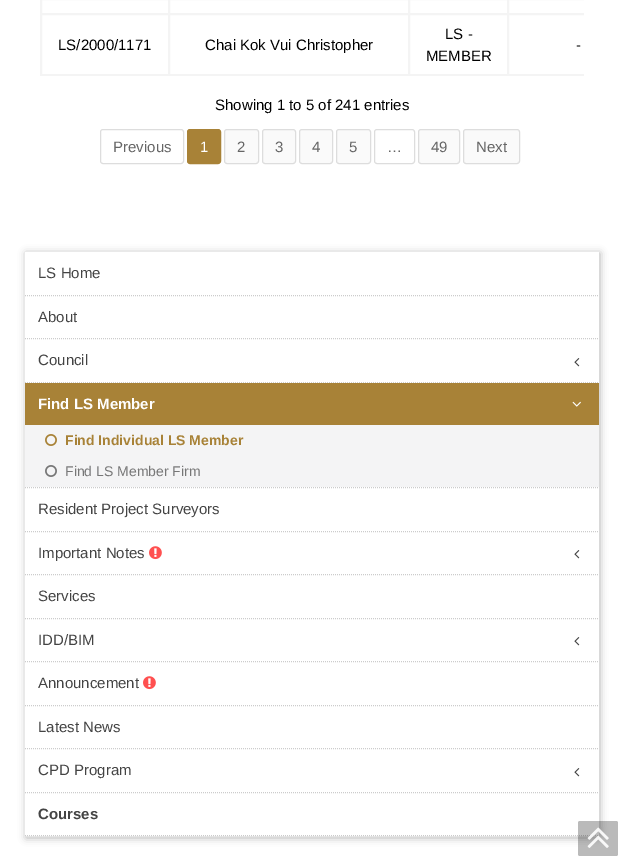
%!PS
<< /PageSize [624 862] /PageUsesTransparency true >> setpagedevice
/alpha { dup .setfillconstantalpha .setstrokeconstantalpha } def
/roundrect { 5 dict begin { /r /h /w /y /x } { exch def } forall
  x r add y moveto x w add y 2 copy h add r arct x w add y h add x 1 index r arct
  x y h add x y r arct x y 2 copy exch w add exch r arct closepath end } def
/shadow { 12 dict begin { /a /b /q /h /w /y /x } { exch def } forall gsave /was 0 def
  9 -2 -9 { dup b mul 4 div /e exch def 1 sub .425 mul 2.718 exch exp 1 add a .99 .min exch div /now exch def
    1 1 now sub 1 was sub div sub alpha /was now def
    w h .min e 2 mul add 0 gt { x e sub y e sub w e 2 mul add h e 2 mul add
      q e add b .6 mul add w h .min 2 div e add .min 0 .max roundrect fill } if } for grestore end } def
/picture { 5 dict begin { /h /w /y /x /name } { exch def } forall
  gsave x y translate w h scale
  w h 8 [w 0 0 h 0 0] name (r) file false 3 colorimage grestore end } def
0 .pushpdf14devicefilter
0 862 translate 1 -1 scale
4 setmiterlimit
1 setgray
0 0 624 862 rectfill
0.957 setgray
40 75 544 1 rectfill
40 0 1 76 rectfill
41.5 -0.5 127 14 rectstroke
169.5 -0.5 239 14 rectstroke
409.5 -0.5 98 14 rectstroke
gsave
40 0 544 76 rectclip
508.5 -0.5 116 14 rectstroke
grestore
41.5 14.5 127 60 rectstroke
/LiberationSans-Regular [15 0 0 -15 0 0] selectfont
0 setgray
58 50 moveto (LS/2000/1171) show
0.957 setgray
169.5 14.5 239 60 rectstroke
0 setgray
205 50 moveto (Chai Kok Vui Christopher) show
0.957 setgray
409.5 14.5 98 60 rectstroke
0 setgray
445 39 moveto (LS -) show
426 61 moveto (MEMBER) show
gsave
40 0 544 76 rectclip
0.957 setgray
508.5 14.5 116 60 rectstroke
grestore
576 50 moveto (-) show
215 110 moveto (Showing 1 to 5 of 241 entries) show
0.867 setgray
100.5 129.5 83 34 2.5 roundrect stroke
0.4 setgray
113 152 moveto (Previous) show
0.659 0.51 0.216 setrgbcolor
187.5 129.5 33 34 2.5 roundrect gsave fill grestore
stroke
1 setgray
200 152 moveto (1) show
0.98 setgray
224.5 129.5 34 34 2.5 roundrect gsave fill grestore
0.867 setgray
stroke
0.4 setgray
237 152 moveto (2) show
0.98 setgray
262.5 129.5 33 34 2.5 roundrect gsave fill grestore
0.867 setgray
stroke
0.4 setgray
275 152 moveto (3) show
0.98 setgray
299.5 129.5 33 34 2.5 roundrect gsave fill grestore
0.867 setgray
stroke
0.4 setgray
312 152 moveto (4) show
0.98 setgray
336.5 129.5 34 34 2.5 roundrect gsave fill grestore
0.867 setgray
stroke
0.4 setgray
349 152 moveto (5) show
0.867 setgray
374.5 129.5 40 34 2.5 roundrect stroke
0.4 setgray
387 152 moveto (…) show
0.98 setgray
418.5 129.5 41 34 2.5 roundrect gsave fill grestore
0.867 setgray
stroke
0.4 setgray
431 152 moveto (49) show
0.98 setgray
463.5 129.5 56 34 2.5 roundrect gsave fill grestore
0.867 setgray
stroke
0.4 setgray
476 152 moveto (Next) show
gsave
newpath 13 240 moveto 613 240 lineto 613 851 lineto 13 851 lineto closepath 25 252 moveto 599 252 lineto 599 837 lineto 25 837 lineto closepath eoclip newpath
0 setgray
26 253 574 585 0 4 0.3 shadow
grestore
0.902 setgray
25 836 574 1 rectfill
0.8 setgray
[1 1] 0 setdash
newpath 25 295.5 moveto 599 295.5 lineto stroke
0.267 setgray
38 278 moveto (LS Home) show
0.8 setgray
newpath 25 338.5 moveto 599 338.5 lineto stroke
0.267 setgray
38 322 moveto (About) show
0.8 setgray
newpath 25 382.5 moveto 599 382.5 lineto stroke
0.267 setgray
38 365 moveto (Council) show
(img1.rgb) 574 358 6 9 picture
0.8 setgray
newpath 25 487.5 moveto 599 487.5 lineto stroke
0.659 0.51 0.216 setrgbcolor
25 383 574 42 rectfill
/LiberationSans-Bold [15 0 0 -15 0 0] selectfont
1 setgray
38 409 moveto (Find LS Member) show
(img2.rgb) 572 401 9 6 picture
0.957 0.957 0.961 setrgbcolor
25 425 574 62 rectfill
(img3.rgb) 45 434 12 12 picture
/LiberationSans-Bold [14 0 0 -14 0 0] selectfont
0.659 0.51 0.216 setrgbcolor
65 445 moveto (Find Individual LS Member) show
(img4.rgb) 45 465 12 12 picture
/LiberationSans-Regular [14 0 0 -14 0 0] selectfont
0.467 setgray
65 476 moveto (Find LS Member Firm) show
0.8 setgray
newpath 25 531.5 moveto 599 531.5 lineto stroke
/LiberationSans-Regular [15 0 0 -15 0 0] selectfont
0.267 setgray
38 514 moveto (Resident Project Surveyors) show
0.8 setgray
newpath 25 574.5 moveto 599 574.5 lineto stroke
0.267 setgray
38 558 moveto (Important Notes) show
(img5.rgb) 149 546 13 14 picture
(img1.rgb) 574 550 6 9 picture
0.8 setgray
newpath 25 618.5 moveto 599 618.5 lineto stroke
0.267 setgray
38 601 moveto (Services) show
0.8 setgray
newpath 25 661.5 moveto 599 661.5 lineto stroke
0.267 setgray
38 645 moveto (IDD/BIM) show
(img1.rgb) 574 637 6 9 picture
0.8 setgray
newpath 25 705.5 moveto 599 705.5 lineto stroke
0.267 setgray
38 688 moveto (Announcement) show
(img5.rgb) 143 676 13 14 picture
0.8 setgray
newpath 25 748.5 moveto 599 748.5 lineto stroke
0.267 setgray
38 732 moveto (Latest News) show
0.8 setgray
newpath 25 792.5 moveto 599 792.5 lineto stroke
0.267 setgray
38 775 moveto (CPD Program) show
(img1.rgb) 574 768 6 9 picture
0.8 setgray
newpath 25 835.5 moveto 599 835.5 lineto stroke
/LiberationSans-Bold [15 0 0 -15 0 0] selectfont
0.267 setgray
38 819 moveto (Courses) show
0.27 alpha
0 setgray
578 821 40 35 2 roundrect fill
1 alpha
(img6.rgb) 587 827 22 21 picture
.poppdf14devicefilter showpage
